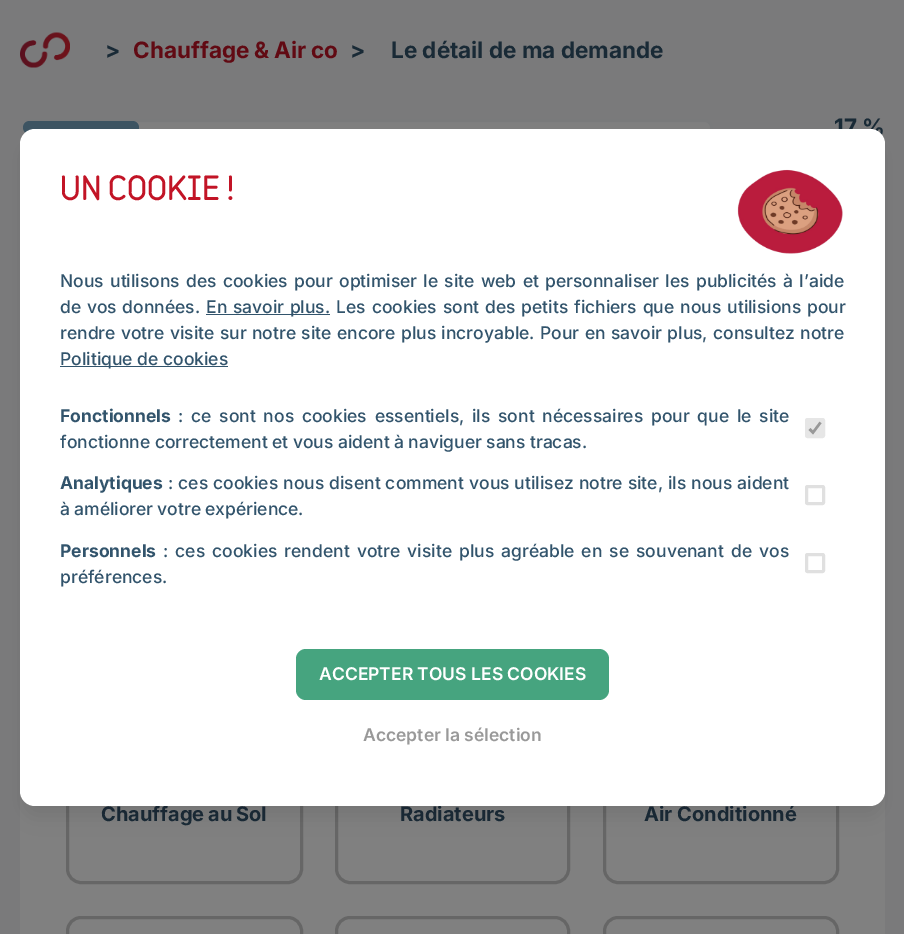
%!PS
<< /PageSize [904 934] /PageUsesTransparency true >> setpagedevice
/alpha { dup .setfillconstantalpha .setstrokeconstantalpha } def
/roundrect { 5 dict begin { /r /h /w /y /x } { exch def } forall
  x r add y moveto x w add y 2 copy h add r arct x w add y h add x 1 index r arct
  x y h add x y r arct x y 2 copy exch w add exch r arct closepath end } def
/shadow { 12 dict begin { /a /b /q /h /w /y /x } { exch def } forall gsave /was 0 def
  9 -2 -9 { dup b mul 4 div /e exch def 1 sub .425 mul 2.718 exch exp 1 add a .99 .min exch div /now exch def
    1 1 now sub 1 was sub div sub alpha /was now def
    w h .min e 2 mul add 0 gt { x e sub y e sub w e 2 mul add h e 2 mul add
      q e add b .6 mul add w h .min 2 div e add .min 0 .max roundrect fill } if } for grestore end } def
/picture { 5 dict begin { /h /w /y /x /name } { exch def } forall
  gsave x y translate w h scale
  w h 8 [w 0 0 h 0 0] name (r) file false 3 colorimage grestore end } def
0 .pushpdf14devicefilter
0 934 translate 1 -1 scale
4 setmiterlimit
0.478 0.478 0.482 setrgbcolor
0 0 904 934 rectfill
(img1.rgb) 20 32 50 36 picture
/Inter-Bold [22.5 0 0 -22.5 0 0] selectfont
0.098 0.165 0.212 setrgbcolor
105 58 moveto (>) show
0.38 0.039 0.075 setrgbcolor
133 58 moveto -0.5 0 32 (Chauffage & Air co) widthshow
0.098 0.165 0.212 setrgbcolor
350 58 moveto (>) show
391 58 moveto (Le détail de ma demande) show
0.502 setgray
21.5 120.5 690 14 7 roundrect gsave fill grestore
0.475 0.478 0.482 setrgbcolor
3 setlinewidth
stroke
0.239 0.329 0.384 setrgbcolor
23 121 116 13 6.5 roundrect fill
0.098 0.165 0.212 setrgbcolor
834 135 moveto (17 %) show
0.502 setgray
20 791 865 143 rectfill
0.4 setgray
67.5 672.5 234 210 13.5 roundrect stroke
/Inter-Bold [20 0 0 -20 0 0] selectfont
0.098 0.165 0.212 setrgbcolor
101 821 moveto -1 0 32 (Chauffage au Sol) widthshow
0.4 setgray
336.5 672.5 232 210 13.5 roundrect stroke
0.098 0.165 0.212 setrgbcolor
400 821 moveto (Radiateurs) show
0.4 setgray
604.5 672.5 233 210 13.5 roundrect stroke
0.098 0.165 0.212 setrgbcolor
644 821 moveto (Air Conditionné) show
0.4 setgray
67.5 917.5 234 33 13.5 roundrect stroke
336.5 917.5 232 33 13.5 roundrect stroke
604.5 917.5 233 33 13.5 roundrect stroke
0 setgray
24 145 857 670 11 9.5 0.1 shadow
1 setgray
20 129 865 677 15 roundrect fill
/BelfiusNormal-Bold [30 0 0 -30 0 0] selectfont
0.761 0.078 0.149 setrgbcolor
60 200 moveto (UN COOKIE !) show
(img2.rgb) 737 169 106 85 picture
/Inter-Medium [17.5 0 0 -17.5 0 0] selectfont
0.196 0.329 0.424 setrgbcolor
60 287 moveto 1.6 0 32 (Nous utilisons des cookies pour optimiser le site web et personnaliser les publicités à l’aide) widthshow
60 313 moveto 1 0 32 (de vos données.) widthshow
206 314 124 1 rectfill
206 313 moveto 1 0 32 (En savoir plus.) widthshow
336 313 moveto 1.25 0 32 (Les cookies sont des petits fichiers que nous utilisions pour) widthshow
60 339 moveto 0.75 0 32 (rendre votre visite sur notre site encore plus incroyable. Pour en savoir plus, consultez notre) widthshow
60 366 168 1 rectfill
60 365 moveto (Politique de cookies) show
/Inter-Bold [17.5 0 0 -17.5 0 0] selectfont
60 422 moveto (Fonctionnels) show
/Inter-Medium [17.5 0 0 -17.5 0 0] selectfont
178 422 moveto 3.1 0 32 (: ce sont nos cookies essentiels, ils sont nécessaires pour que le site) widthshow
60 448 moveto -0.25 0 32 (fonctionne correctement et vous aident à naviguer sans tracas.) widthshow
0.902 setgray
806.5 419.5 17 17 1 roundrect gsave fill grestore
stroke
0.6 setgray
2.5 setlinewidth
newpath 809.5 429 moveto 813 432.5 lineto 820.5 422.5 lineto stroke
/Inter-Bold [17.5 0 0 -17.5 0 0] selectfont
0.196 0.329 0.424 setrgbcolor
60 489 moveto (Analytiques) show
/Inter-Medium [17.5 0 0 -17.5 0 0] selectfont
168 489 moveto 0.3 0 32 (: ces cookies nous disent comment vous utilisez notre site, ils nous aident) widthshow
60 515 moveto -0.5 0 32 (à améliorer votre expérience.) widthshow
0.878 setgray
3 setlinewidth
806.5 486.5 17 17 1 roundrect stroke
/Inter-Bold [17.5 0 0 -17.5 0 0] selectfont
0.196 0.329 0.424 setrgbcolor
60 557 moveto (Personnels) show
/Inter-Medium [17.5 0 0 -17.5 0 0] selectfont
163 557 moveto 2.4 0 32 (: ces cookies rendent votre visite plus agréable en se souvenant de vos) widthshow
60 583 moveto (préférences.) show
0.878 setgray
806.5 554.5 17 17 1 roundrect stroke
0.275 0.643 0.498 setrgbcolor
296 649 313 51 10 roundrect fill
/Inter-SemiBold [17.5 0 0 -17.5 0 0] selectfont
1 setgray
319 680 moveto (ACCEPTER TOUS LES COOKIES) show
0.6 setgray
363 741 moveto (Accepter la sélection) show
.poppdf14devicefilter showpage
